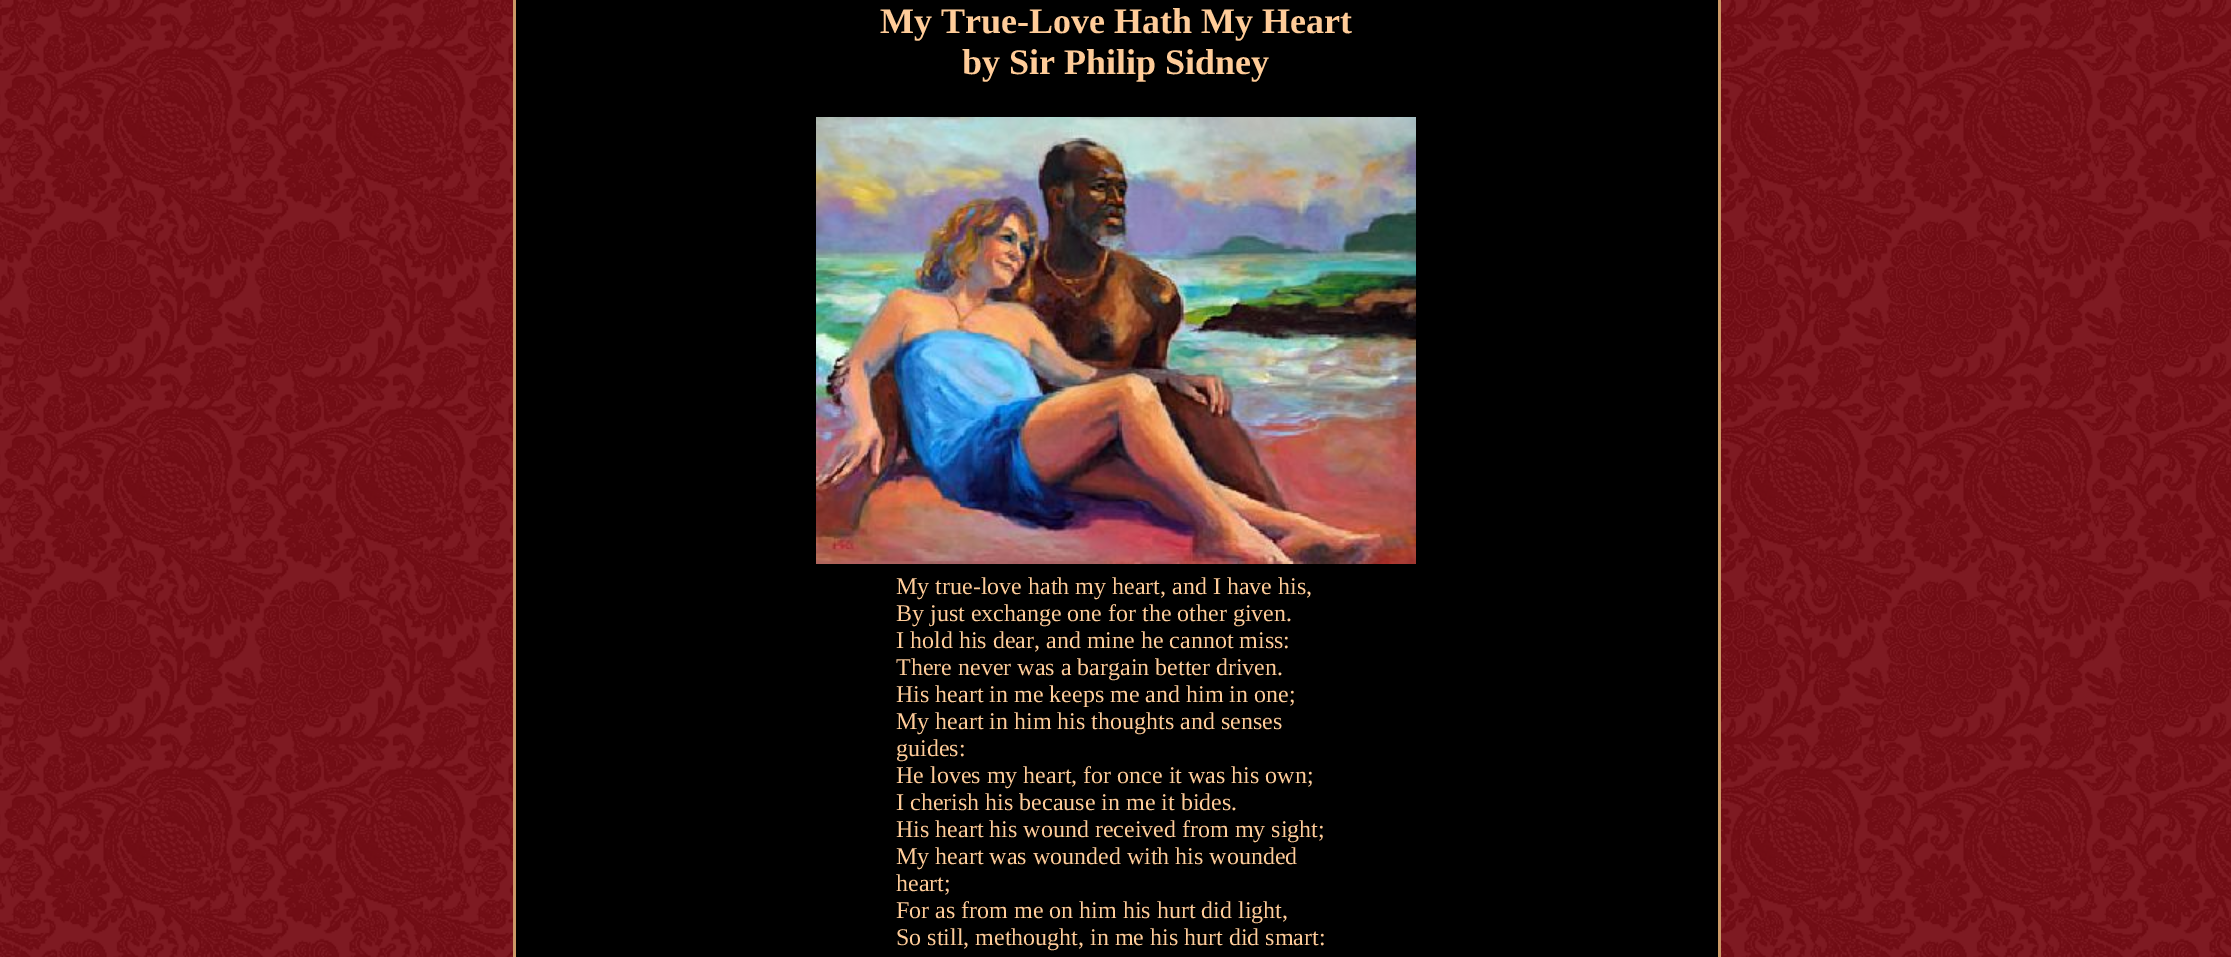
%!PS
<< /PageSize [2231 957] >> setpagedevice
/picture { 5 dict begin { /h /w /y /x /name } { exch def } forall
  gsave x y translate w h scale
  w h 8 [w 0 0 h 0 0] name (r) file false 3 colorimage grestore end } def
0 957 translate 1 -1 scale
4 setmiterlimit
1 setgray
0 0 2231 957 rectfill
(img1.rgb) 0 0 2231 957 picture
0 setgray
516 0 1202 957 rectfill
0.8 0.6 0.4 setrgbcolor
1718 0 3 957 rectfill
513 0 3 957 rectfill
/LiberationSerif-Bold [36 0 0 -36 0 0] selectfont
1 0.8 0.6 setrgbcolor
880 33 moveto (My True-Love Hath My Heart) show
962 74 moveto (by Sir Philip Sidney) show
(img2.rgb) 816 117 600 447 picture
/LiberationSerif-Regular [24 0 0 -24 0 0] selectfont
896 594 moveto (My true-love hath my heart, and I have his,) show
896 621 moveto (By just exchange one for the other given.) show
896 648 moveto (I hold his dear, and mine he cannot miss:) show
896 675 moveto (There never was a bargain better driven.) show
896 702 moveto (His heart in me keeps me and him in one;) show
896 729 moveto (My heart in him his thoughts and senses) show
896 756 moveto (guides:) show
896 783 moveto (He loves my heart, for once it was his own;) show
896 810 moveto (I cherish his because in me it bides.) show
896 837 moveto (His heart his wound received from my sight;) show
896 864 moveto (My heart was wounded with his wounded) show
896 891 moveto (heart;) show
896 918 moveto (For as from me on him his hurt did light,) show
896 945 moveto (So still, methought, in me his hurt did smart:) show
showpage
